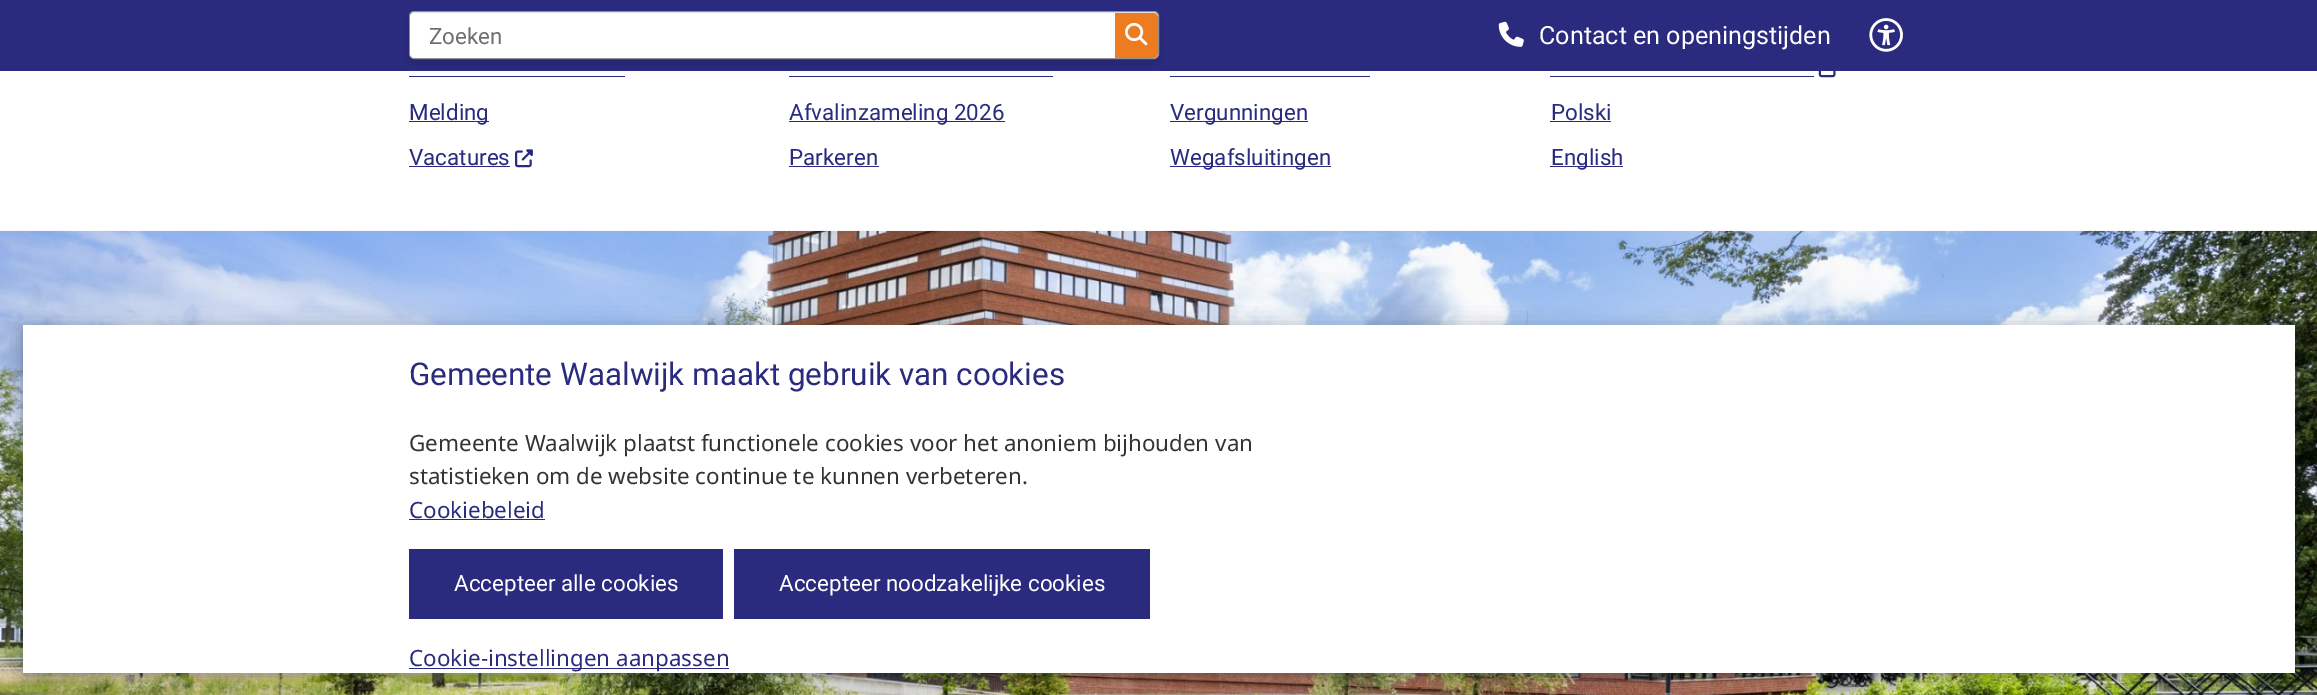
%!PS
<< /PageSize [2317 695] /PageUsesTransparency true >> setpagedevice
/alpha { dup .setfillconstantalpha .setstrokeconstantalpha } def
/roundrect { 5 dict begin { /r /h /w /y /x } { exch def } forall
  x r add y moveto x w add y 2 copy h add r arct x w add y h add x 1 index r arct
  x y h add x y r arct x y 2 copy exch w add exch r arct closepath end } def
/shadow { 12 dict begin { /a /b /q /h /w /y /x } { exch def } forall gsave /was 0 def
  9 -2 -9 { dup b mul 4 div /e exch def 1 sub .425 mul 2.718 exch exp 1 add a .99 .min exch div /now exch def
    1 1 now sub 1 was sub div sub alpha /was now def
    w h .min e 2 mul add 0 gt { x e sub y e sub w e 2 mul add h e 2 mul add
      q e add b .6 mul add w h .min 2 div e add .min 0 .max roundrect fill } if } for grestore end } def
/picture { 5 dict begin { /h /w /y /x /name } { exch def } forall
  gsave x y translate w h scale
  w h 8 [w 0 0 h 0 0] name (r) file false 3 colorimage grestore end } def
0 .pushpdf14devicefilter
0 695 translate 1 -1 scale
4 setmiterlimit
1 setgray
0 0 2317 695 rectfill
0.165 0.165 0.498 setrgbcolor
0 0 2317 71 rectfill
0 setgray
409 14 750 47 5 2.5 0.08 shadow
0.165 0.165 0.498 setrgbcolor
409 76 216 1 rectfill
789 76 264 1 rectfill
1170 76 200 1 rectfill
0 setgray
409 16 750 48 5 5 0.12 shadow
1 setgray
409.5 11.5 749 47 4.5 roundrect gsave fill grestore
0.561 setgray
stroke
1 setgray
410 13 705 45 5 roundrect fill
/Roboto-Regular [22.4 0 0 -22.4 0 0] selectfont
0.435 setgray
429 44 moveto (Zoeken) show
0.929 0.486 0.125 setrgbcolor
newpath 1115 13 moveto 1153 13 lineto 1156 13 1158 15 1158 18 curveto 1158 53 lineto 1158 56 1156 58 1153 58 curveto 1115 58 lineto closepath fill
(img1.rgb) 1125 22 23 24 picture
(img2.rgb) 1498 21 26 26 picture
/Roboto-Regular [25.1 0 0 -25.1 0 0] selectfont
1 setgray
1539 44 moveto (Contact en openingstijden) show
(img3.rgb) 1869 18 34 34 picture
0.165 0.165 0.498 setrgbcolor
1550 76 264 1 rectfill
(img4.rgb) 1818 71 18 7 picture
409 121 80 1 rectfill
/Roboto-Regular [22.4 0 0 -22.4 0 0] selectfont
409 120 moveto (Melding) show
789 121 216 1 rectfill
789 120 moveto (Afvalinzameling 2026) show
1170 121 138 1 rectfill
1170 120 moveto (Vergunningen) show
1551 120 moveto (Polski) show
1550 121 61 1 rectfill
409 165 moveto (Vacatures) show
409 166 101 1 rectfill
(img5.rgb) 515 149 18 19 picture
789 165 moveto (Parkeren) show
789 166 90 1 rectfill
1170 166 161 1 rectfill
1170 165 moveto (Wegafsluitingen) show
1550 166 73 1 rectfill
1551 165 moveto (English) show
(img6.rgb) 0 230 2317 465 picture
0.055 0.118 0.145 setrgbcolor
23 328 2272 347 0 10 0.32 shadow
23 328 2272 347 0 2.5 0.12 shadow
1 setgray
23 325 2272 348 rectfill
/Roboto-Regular [31.4 0 0 -31.4 0 0] selectfont
0.165 0.165 0.498 setrgbcolor
409 385 moveto (Gemeente Waalwijk maakt gebruik van cookies) show
/NotoSans-Regular [22.4 0 0 -22.4 0 0] selectfont
0.2 setgray
409 451 moveto (Gemeente Waalwijk plaatst functionele cookies voor het anoniem bijhouden van) show
409 484 moveto (statistieken om de website continue te kunnen verbeteren.) show
0.165 0.165 0.498 setrgbcolor
409 518 moveto (Cookiebeleid) show
409 519 136 1 rectfill
409 549 314 70 rectfill
/Roboto-Regular [22.4 0 0 -22.4 0 0] selectfont
1 setgray
454 591 moveto (Accepteer alle cookies) show
0.165 0.165 0.498 setrgbcolor
734 549 416 70 rectfill
1 setgray
779 591 moveto (Accepteer noodzakelijke cookies) show
0.165 0.165 0.498 setrgbcolor
409 668 320 1 rectfill
/NotoSans-Regular [22.4 0 0 -22.4 0 0] selectfont
409 666 moveto (Cookie-instellingen aanpassen) show
.poppdf14devicefilter showpage
